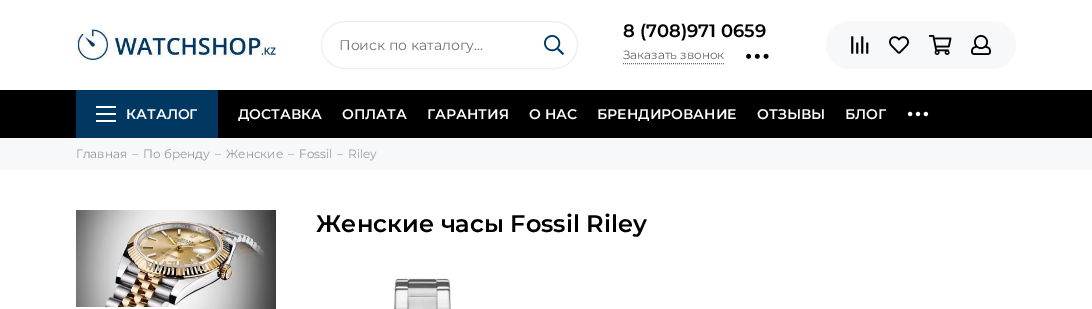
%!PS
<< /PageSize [1092 309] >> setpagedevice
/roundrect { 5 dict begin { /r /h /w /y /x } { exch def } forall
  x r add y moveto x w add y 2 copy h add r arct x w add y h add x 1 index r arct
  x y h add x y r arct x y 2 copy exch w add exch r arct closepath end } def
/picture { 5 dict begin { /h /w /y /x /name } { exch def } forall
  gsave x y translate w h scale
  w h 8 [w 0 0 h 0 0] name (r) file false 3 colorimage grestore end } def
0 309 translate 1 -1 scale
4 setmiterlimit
1 setgray
0 0 1092 309 rectfill
(img1.rgb) 76 29 200 32 picture
0.933 setgray
321.5 21.5 256 47 23.5 roundrect stroke
/Montserrat-Regular [14 0 0 -14 0 0] selectfont
0.459 setgray
339 50 moveto (Поиск по каталогу…) show
(img2.rgb) 544 35 20 20 picture
/Montserrat-SemiBold [18 0 0 -18 0 0] selectfont
0 setgray
623 37 moveto (8 \(708\)971 0659) show
0.4 setgray
[1 1] 0 setdash
newpath 623 63.5 moveto 724 63.5 lineto stroke
/Montserrat-Regular [12 0 0 -12 0 0] selectfont
623 59 moveto (Заказать звонок) show
(img3.rgb) 746 53 23 6 picture
0.969 0.973 0.98 setrgbcolor
826 21 190 48 24 roundrect fill
(img4.rgb) 851 36 18 18 picture
(img5.rgb) 889 36 20 18 picture
(img6.rgb) 929 35 23 20 picture
(img7.rgb) 971 35 20 20 picture
0 setgray
0 90 1092 48 rectfill
0.004 0.22 0.38 setrgbcolor
76 90 142 48 rectfill
1 setgray
96 106 20 2 rectfill
96 113 20 2 rectfill
96 120 20 2 rectfill
/Montserrat-SemiBold [14 0 0 -14 0 0] selectfont
126 119 moveto (КАТАЛОГ) show
238 119 moveto (ДОСТАВКА) show
342 119 moveto (ОПЛАТА) show
427 119 moveto (ГАРАНТИЯ) show
529 119 moveto (О НАС) show
597 119 moveto (БРЕНДИРОВАНИЕ) show
757 119 moveto (ОТЗЫВЫ) show
845 119 moveto (БЛОГ) show
(img8.rgb) 907 111 22 6 picture
0.969 0.973 0.98 setrgbcolor
0 138 1092 32 rectfill
/Montserrat-Regular [12 0 0 -12 0 0] selectfont
0.6 setgray
76 158 moveto (Главная) show
132 158 moveto (–) show
143 158 moveto (По бренду) show
215 158 moveto (–) show
226 158 moveto (Женские) show
288 158 moveto (–) show
299 158 moveto (Fossil) show
337 158 moveto (–) show
348 158 moveto (Riley) show
/Montserrat-SemiBold [24 0 0 -24 0 0] selectfont
0 setgray
316 232 moveto (Женские часы Fossil Riley) show
(img9.rgb) 393 278 59 31 picture
(img10.rgb) 76 210 200 99 picture
/Montserrat-SemiBold [14 0 0 -14 0 0] selectfont
0.722 0.663 0.576 setrgbcolor
146 271 moveto (ЧИТАТЬ) show
1 setgray
76 307 102 2 rectfill
showpage
